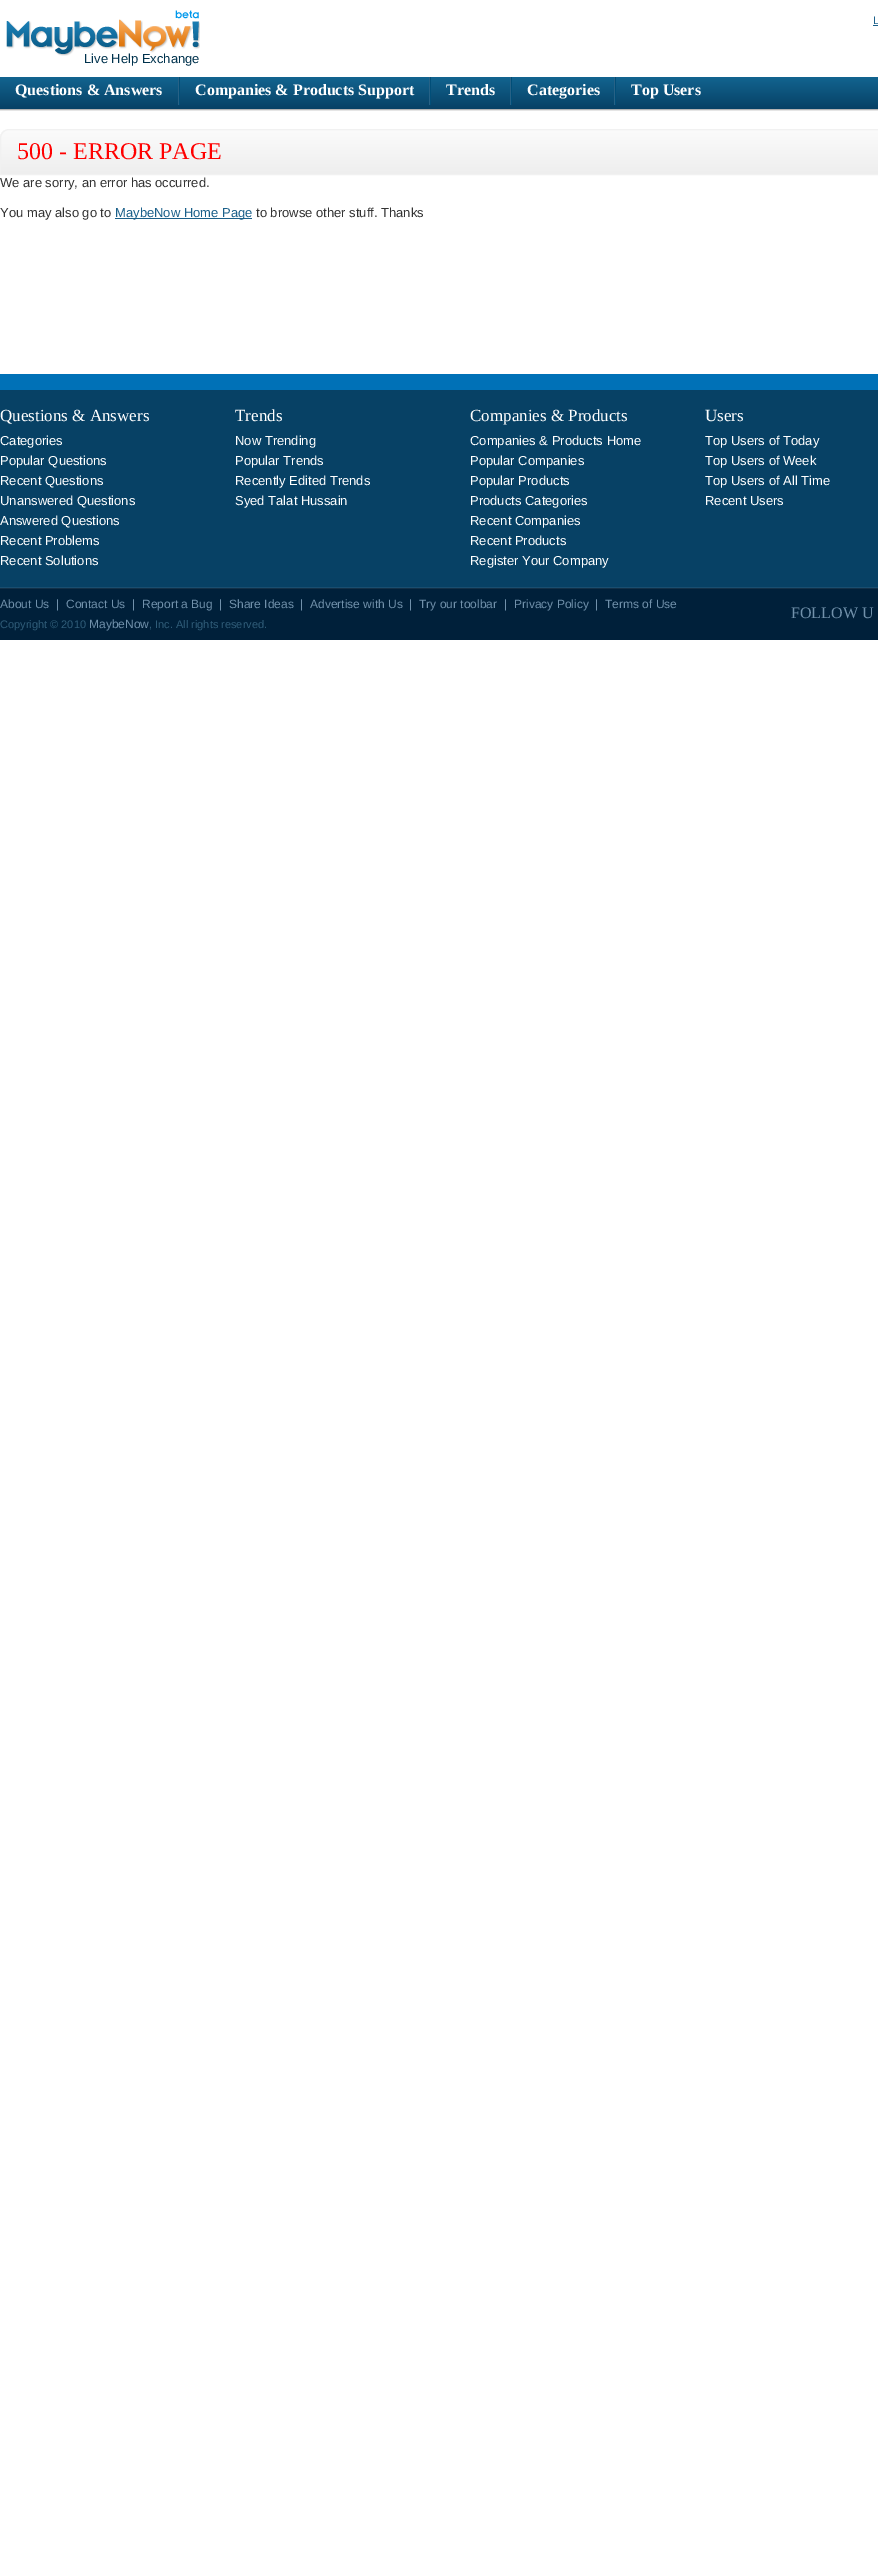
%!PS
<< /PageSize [878 2560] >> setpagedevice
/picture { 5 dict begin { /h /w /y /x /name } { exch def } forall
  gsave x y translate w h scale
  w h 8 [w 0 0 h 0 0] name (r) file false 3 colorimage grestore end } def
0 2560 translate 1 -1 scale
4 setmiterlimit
1 setgray
0 0 878 2560 rectfill
/LiberationSans-Regular [11 0 0 -11 0 0] selectfont
0.106 0.376 0.541 setrgbcolor
873 24 moveto (L) show
873 25 5 1 rectfill
(img1.rgb) 6 10 194 46 picture
/LiberationSans-Regular [13 0 0 -13 0 0] selectfont
0 0.196 0.302 setrgbcolor
84 63 moveto (Live Help Exchange) show
0.898 setgray
0 110 878 1 rectfill
gsave newpath 0 77 moveto 878 77 lineto 878 109 lineto 0 109 lineto closepath clip newpath
<< /ShadingType 2 /ColorSpace /DeviceRGB /Coords [0 77 0 109] /Extend [true true] /Function << /FunctionType 2 /Domain [0 1] /C0 [0.071 0.392 0.565] /C1 [0.027 0.255 0.396] /N 1 >> >> shfill grestore
0.702 setgray
0 109 878 1 rectfill
0.153 0.384 0.525 setrgbcolor
178 77 1 28 rectfill
/LiberationSerif-Bold [16 0 0 -16 0 0] selectfont
1 setgray
15 95 moveto (Questions & Answers) show
0.153 0.384 0.525 setrgbcolor
429 77 1 28 rectfill
0.004 0.306 0.471 setrgbcolor
179 77 1 28 rectfill
1 setgray
195 95 moveto (Companies & Products Support) show
0.153 0.384 0.525 setrgbcolor
510 77 1 28 rectfill
0.004 0.306 0.471 setrgbcolor
430 77 1 28 rectfill
1 setgray
446 95 moveto (Trends) show
0.153 0.384 0.525 setrgbcolor
614 77 1 28 rectfill
0.004 0.306 0.471 setrgbcolor
511 77 1 28 rectfill
1 setgray
527 95 moveto (Categories) show
0.004 0.306 0.471 setrgbcolor
615 77 1 28 rectfill
1 setgray
631 95 moveto (Top Users) show
gsave
newpath 9 129 moveto 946 129 lineto 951 129 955 133 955 138 curveto 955 175 lineto 0 175 lineto 0 138 lineto 0 133 4 129 9 129 curveto closepath clip newpath
gsave newpath 0 130 moveto 878 130 lineto 878 174 lineto 0 174 lineto closepath clip newpath
<< /ShadingType 2 /ColorSpace /DeviceRGB /Coords [1 130 1 174] /Extend [true true] /Function << /FunctionType 2 /Domain [0 1] /C0 [0.984 0.984 0.984] /C1 [0.933 0.933 0.933] /N 1 >> >> shfill grestore
grestore
0.945 setgray
newpath 9 129.5 moveto 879 129.5 lineto 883.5 129.5 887.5 133.5 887.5 138 curveto 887.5 174.5 lineto 0.5 174.5 lineto 0.5 138 lineto 0.5 133.5 4.5 129.5 9 129.5 curveto closepath stroke
/LiberationSerif-Regular [24 0 0 -24 0 0] selectfont
1 0 0 setrgbcolor
17 159 moveto (500 - ERROR PAGE) show
/LiberationSans-Regular [13 0 0 -13 0 0] selectfont
0.2 setgray
0 187 moveto (We are sorry, an error has occurred.) show
0 217 moveto (You may also go to) show
0.106 0.376 0.541 setrgbcolor
115 218 137 1 rectfill
115 217 moveto (MaybeNow Home Page) show
0.2 setgray
256 217 moveto (to browse other stuff. Thanks) show
0 0.443 0.718 setrgbcolor
0 374 878 16 rectfill
0.027 0.255 0.396 setrgbcolor
0 390 878 197 rectfill
0.098 0.306 0.439 setrgbcolor
0 587 878 1 rectfill
/LiberationSerif-Regular [17 0 0 -17 0 0] selectfont
1 setgray
0 421 moveto (Questions & Answers) show
/LiberationSans-Regular [13 0 0 -13 0 0] selectfont
0 445 moveto (Categories) show
0 465 moveto (Popular Questions) show
0 485 moveto (Recent Questions) show
0 505 moveto (Unanswered Questions) show
0 525 moveto (Answered Questions) show
0 545 moveto (Recent Problems) show
0 565 moveto (Recent Solutions) show
/LiberationSerif-Regular [17 0 0 -17 0 0] selectfont
235 421 moveto (Trends) show
/LiberationSans-Regular [13 0 0 -13 0 0] selectfont
235 445 moveto (Now Trending) show
235 465 moveto (Popular Trends) show
235 485 moveto (Recently Edited Trends) show
235 505 moveto (Syed Talat Hussain) show
/LiberationSerif-Regular [17 0 0 -17 0 0] selectfont
470 421 moveto (Companies & Products) show
/LiberationSans-Regular [13 0 0 -13 0 0] selectfont
470 445 moveto (Companies & Products Home) show
470 465 moveto (Popular Companies) show
470 485 moveto (Popular Products) show
470 505 moveto (Products Categories) show
470 525 moveto (Recent Companies) show
470 545 moveto (Recent Products) show
470 565 moveto (Register Your Company) show
/LiberationSerif-Regular [17 0 0 -17 0 0] selectfont
705 421 moveto (Users) show
/LiberationSans-Regular [13 0 0 -13 0 0] selectfont
705 445 moveto (Top Users of Today) show
705 465 moveto (Top Users of Week) show
705 485 moveto (Top Users of All Time) show
705 505 moveto (Recent Users) show
0 0.125 0.227 setrgbcolor
0 589 878 51 rectfill
0.071 0.188 0.282 setrgbcolor
0 588 878 1 rectfill
/LiberationSans-Regular [12 0 0 -12 0 0] selectfont
0.443 0.569 0.671 setrgbcolor
0 608 moveto (About Us) show
56 608 moveto (|) show
66 608 moveto (Contact Us) show
132 608 moveto (|) show
142 608 moveto (Report a Bug) show
219 608 moveto (|) show
229 608 moveto (Share Ideas) show
300 608 moveto (|) show
310 608 moveto (Advertise with Us) show
409 608 moveto (|) show
419 608 moveto (Try our toolbar) show
504 608 moveto (|) show
514 608 moveto (Privacy Policy) show
595 608 moveto (|) show
605 608 moveto (Terms of Use) show
/LiberationSerif-Regular [16 0 0 -16 0 0] selectfont
791 618 moveto (FOLLOW U) show
/LiberationSans-Regular [11 0 0 -11 0 0] selectfont
0.188 0.365 0.475 setrgbcolor
0 628 moveto (Copyright © 2010) show
/LiberationSans-Regular [12 0 0 -12 0 0] selectfont
0.443 0.569 0.671 setrgbcolor
89 628 moveto (MaybeNow) show
/LiberationSans-Regular [11 0 0 -11 0 0] selectfont
0.188 0.365 0.475 setrgbcolor
149 628 moveto (, Inc. All rights reserved.) show
showpage
